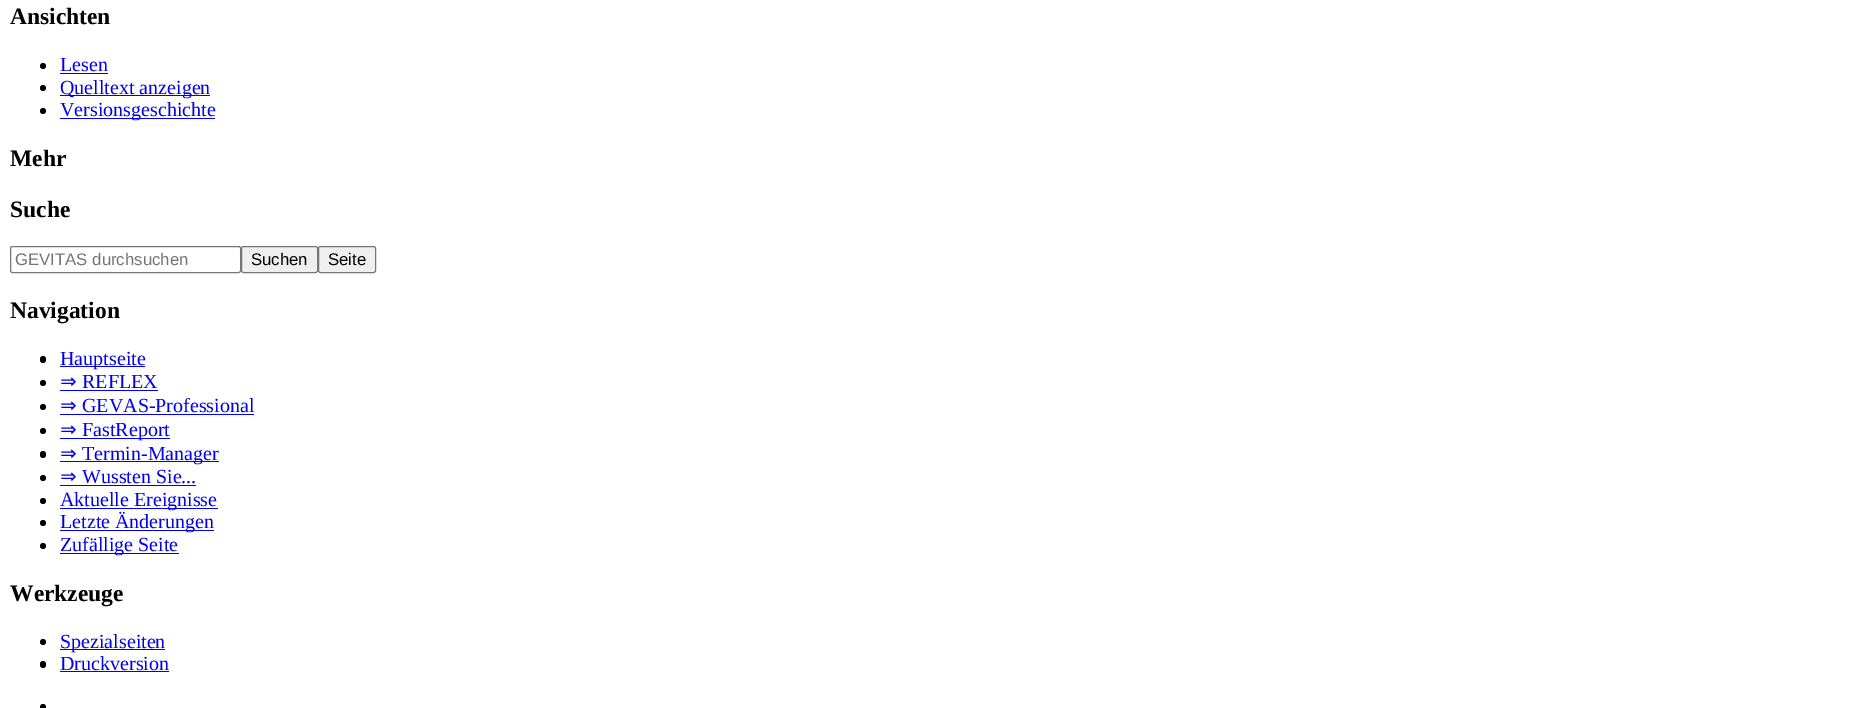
%!PS
<< /PageSize [1864 708] >> setpagedevice
/roundrect { 5 dict begin { /r /h /w /y /x } { exch def } forall
  x r add y moveto x w add y 2 copy h add r arct x w add y h add x 1 index r arct
  x y h add x y r arct x y 2 copy exch w add exch r arct closepath end } def
0 708 translate 1 -1 scale
4 setmiterlimit
1 setgray
0 0 1864 708 rectfill
/LiberationSerif-Bold [23.5 0 0 -23.5 0 0] selectfont
0 setgray
10 24 moveto (Ansichten) show
newpath 43 66 3 0 360 arc closepath fill
/LiberationSerif-Regular [20 0 0 -20 0 0] selectfont
0 0 0.933 setrgbcolor
60 71 moveto (Lesen) show
60 73 48 1 rectfill
0 setgray
newpath 43 88 3 0 360 arc closepath fill
0 0 0.933 setrgbcolor
60 95 150 1 rectfill
60 94 moveto (Quelltext anzeigen) show
0 setgray
newpath 43 111 3 0 360 arc closepath fill
0 0 0.933 setrgbcolor
60 118 155 1 rectfill
60 116 moveto (Versionsgeschichte) show
/LiberationSerif-Bold [23.5 0 0 -23.5 0 0] selectfont
0 setgray
10 166 moveto (Mehr) show
10 217 moveto (Suche) show
0.463 setgray
10.5 246.5 230 26 2 roundrect stroke
/LiberationSans-Regular [16.75 0 0 -16.75 0 0] selectfont
0.459 setgray
15 265 moveto (GEVITAS durchsuchen) show
0.937 setgray
241.5 246.5 76 26 2 roundrect gsave fill grestore
0.463 setgray
stroke
0 setgray
251 265 moveto (Suchen) show
0.937 setgray
318.5 246.5 57 26 2 roundrect gsave fill grestore
0.463 setgray
stroke
0 setgray
328 265 moveto (Seite) show
/LiberationSerif-Bold [23.5 0 0 -23.5 0 0] selectfont
10 318 moveto (Navigation) show
40 356 6 7 3 roundrect fill
0 0 0.933 setrgbcolor
60 366 85 1 rectfill
/LiberationSerif-Regular [20 0 0 -20 0 0] selectfont
60 365 moveto (Hauptseite) show
0 setgray
newpath 43 383 3 0 360 arc closepath fill
/DejaVuSans-Regular [20 0 0 -20 0 0] selectfont
0 0 0.933 setrgbcolor
60 388 moveto (⇒) show
60 390 98 1 rectfill
/LiberationSerif-Regular [20 0 0 -20 0 0] selectfont
82 388 moveto (REFLEX) show
0 setgray
newpath 43 407 3 0 360 arc closepath fill
/DejaVuSans-Regular [20 0 0 -20 0 0] selectfont
0 0 0.933 setrgbcolor
60 412 moveto (⇒) show
60 414 194 1 rectfill
/LiberationSerif-Regular [20 0 0 -20 0 0] selectfont
82 412 moveto (GEVAS-Professional) show
0 setgray
newpath 43 431 3 0 360 arc closepath fill
/DejaVuSans-Regular [20 0 0 -20 0 0] selectfont
0 0 0.933 setrgbcolor
60 436 moveto (⇒) show
60 438 110 1 rectfill
/LiberationSerif-Regular [20 0 0 -20 0 0] selectfont
82 436 moveto (FastReport) show
0 setgray
40 451 6 7 3 roundrect fill
/DejaVuSans-Regular [20 0 0 -20 0 0] selectfont
0 0 0.933 setrgbcolor
60 460 moveto (⇒) show
60 461 159 1 rectfill
/LiberationSerif-Regular [20 0 0 -20 0 0] selectfont
82 460 moveto (Termin-Manager) show
0 setgray
newpath 43 478 3 0 360 arc closepath fill
/DejaVuSans-Regular [20 0 0 -20 0 0] selectfont
0 0 0.933 setrgbcolor
60 483 moveto (⇒) show
60 485 136 1 rectfill
/LiberationSerif-Regular [20 0 0 -20 0 0] selectfont
82 483 moveto (Wussten Sie...) show
0 setgray
newpath 43 501 3 0 360 arc closepath fill
0 0 0.933 setrgbcolor
60 508 158 1 rectfill
60 506 moveto (Aktuelle Ereignisse) show
0 setgray
newpath 43 523 3 0 360 arc closepath fill
0 0 0.933 setrgbcolor
60 530 154 1 rectfill
60 528 moveto (Letzte Änderungen) show
0 setgray
newpath 43 546 3 0 360 arc closepath fill
0 0 0.933 setrgbcolor
60 553 119 1 rectfill
60 551 moveto (Zufällige Seite) show
/LiberationSerif-Bold [23.5 0 0 -23.5 0 0] selectfont
0 setgray
10 601 moveto (Werkzeuge) show
newpath 43 642 3 0 360 arc closepath fill
0 0 0.933 setrgbcolor
60 649 105 1 rectfill
/LiberationSerif-Regular [20 0 0 -20 0 0] selectfont
60 648 moveto (Spezialseiten) show
0 setgray
40 661 6 7 3 roundrect fill
0 0 0.933 setrgbcolor
60 670 moveto (Druckversion) show
60 671 109 1 rectfill
0 setgray
newpath 43 707 3 0 360 arc closepath fill
showpage
